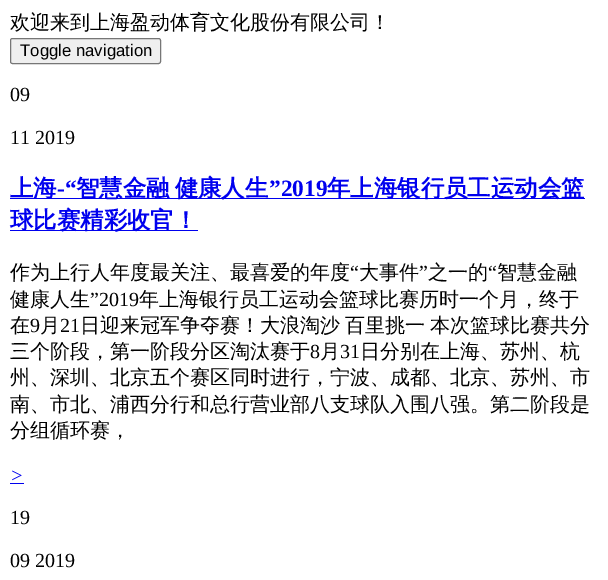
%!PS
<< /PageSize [608 580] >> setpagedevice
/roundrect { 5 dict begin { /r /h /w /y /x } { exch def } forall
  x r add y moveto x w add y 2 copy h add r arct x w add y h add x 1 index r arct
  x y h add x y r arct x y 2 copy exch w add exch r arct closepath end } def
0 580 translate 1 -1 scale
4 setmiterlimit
1 setgray
0 0 608 580 rectfill
/WenQuanYiZenHei-Medium [20 0 0 -20 0 0] selectfont
0 setgray
10 29 moveto (欢迎来到上海盈动体育文化股份有限公司！) show
0.937 setgray
10.5 38.5 150 25 2 roundrect gsave fill grestore
0.463 setgray
stroke
/LiberationSans-Regular [16.75 0 0 -16.75 0 0] selectfont
0 setgray
20 56 moveto (Toggle navigation) show
/LiberationSerif-Regular [20 0 0 -20 0 0] selectfont
10 101 moveto (09) show
10 144 moveto (11 2019) show
0 0 0.933 setrgbcolor
10 198 575 1 rectfill
/WenQuanYiZenHei-Bold [23.4 0 0 -23.4 0 0] selectfont
10 196 moveto (上海) show
/LiberationSerif-Bold [23.4 0 0 -23.4 0 0] selectfont
57 196 moveto (-“) show
/WenQuanYiZenHei-Bold [23.4 0 0 -23.4 0 0] selectfont
76 196 moveto -2 0 32 (智慧金融 健康人生) widthshow
/LiberationSerif-Bold [23.4 0 0 -23.4 0 0] selectfont
269 196 moveto (”2019) show
/WenQuanYiZenHei-Bold [23.4 0 0 -23.4 0 0] selectfont
327 196 moveto (年上海银行员工运动会篮) show
10 230 188 1 rectfill
10 228 moveto (球比赛精彩收官！) show
/WenQuanYiZenHei-Medium [20 0 0 -20 0 0] selectfont
0 setgray
10 279 moveto (作为上行人年度最关注、最喜爱的年度) show
/LiberationSerif-Regular [20 0 0 -20 0 0] selectfont
350 279 moveto (“) show
/WenQuanYiZenHei-Medium [20 0 0 -20 0 0] selectfont
359 279 moveto (大事件) show
/LiberationSerif-Regular [20 0 0 -20 0 0] selectfont
419 279 moveto (”) show
/WenQuanYiZenHei-Medium [20 0 0 -20 0 0] selectfont
428 279 moveto (之一的) show
/LiberationSerif-Regular [20 0 0 -20 0 0] selectfont
488 279 moveto (“) show
/WenQuanYiZenHei-Medium [20 0 0 -20 0 0] selectfont
497 279 moveto (智慧金融) show
10 306 moveto (健康人生) show
/LiberationSerif-Regular [20 0 0 -20 0 0] selectfont
90 306 moveto (”2019) show
/WenQuanYiZenHei-Medium [20 0 0 -20 0 0] selectfont
139 306 moveto (年上海银行员工运动会篮球比赛历时一个月，终于) show
10 332 moveto (在) show
/LiberationSerif-Regular [20 0 0 -20 0 0] selectfont
30 332 moveto (9) show
/WenQuanYiZenHei-Medium [20 0 0 -20 0 0] selectfont
40 332 moveto (月) show
/LiberationSerif-Regular [20 0 0 -20 0 0] selectfont
60 332 moveto (21) show
/WenQuanYiZenHei-Medium [20 0 0 -20 0 0] selectfont
80 332 moveto -1 0 32 (日迎来冠军争夺赛！大浪淘沙 百里挑一) widthshow
430 332 moveto (本次篮球比赛共分) show
10 358 moveto (三个阶段，第一阶段分区淘汰赛于) show
/LiberationSerif-Regular [20 0 0 -20 0 0] selectfont
310 358 moveto (8) show
/WenQuanYiZenHei-Medium [20 0 0 -20 0 0] selectfont
320 358 moveto (月) show
/LiberationSerif-Regular [20 0 0 -20 0 0] selectfont
340 358 moveto (31) show
/WenQuanYiZenHei-Medium [20 0 0 -20 0 0] selectfont
360 358 moveto (日分别在上海、苏州、杭) show
10 384 moveto (州、深圳、北京五个赛区同时进行，宁波、成都、北京、苏州、市) show
10 411 moveto (南、市北、浦西分行和总行营业部八支球队入围八强。第二阶段是) show
10 437 moveto (分组循环赛，) show
/LiberationSerif-Italic [20 0 0 -20 0 0] selectfont
0 0 0.933 setrgbcolor
10 482 moveto (>) show
10 483 14 1 rectfill
/LiberationSerif-Regular [20 0 0 -20 0 0] selectfont
0 setgray
10 524 moveto (19) show
10 567 moveto (09 2019) show
showpage
